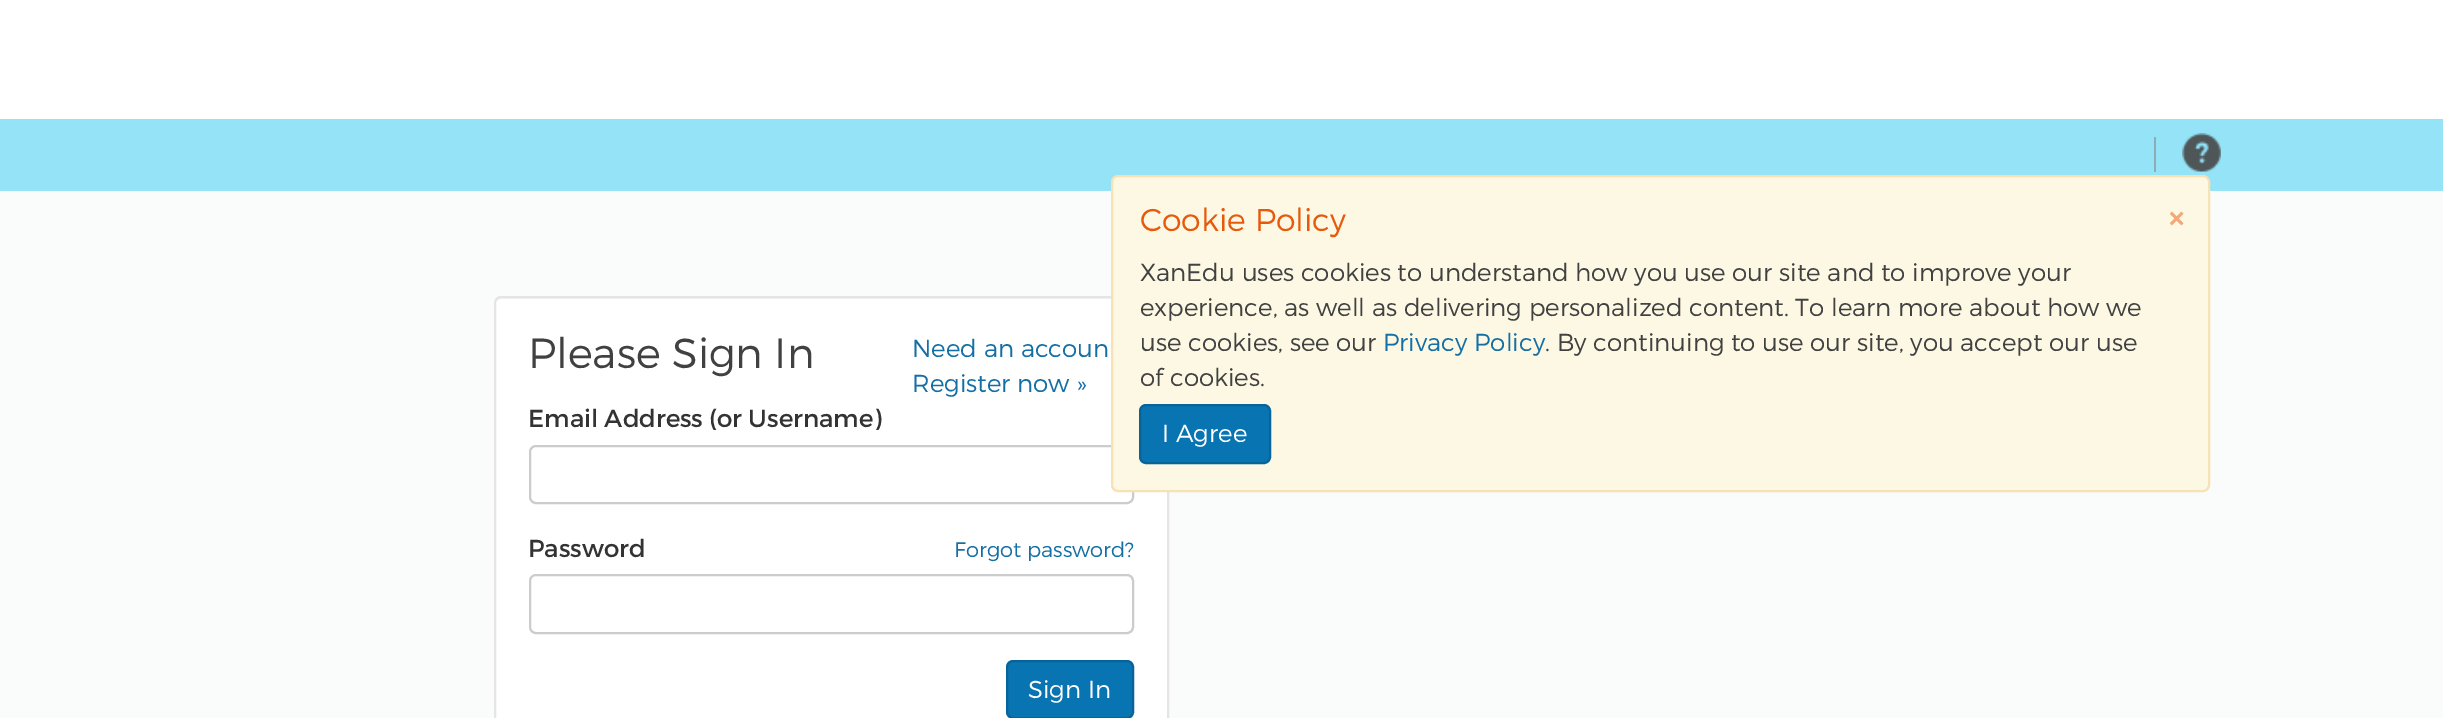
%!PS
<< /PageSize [2443 718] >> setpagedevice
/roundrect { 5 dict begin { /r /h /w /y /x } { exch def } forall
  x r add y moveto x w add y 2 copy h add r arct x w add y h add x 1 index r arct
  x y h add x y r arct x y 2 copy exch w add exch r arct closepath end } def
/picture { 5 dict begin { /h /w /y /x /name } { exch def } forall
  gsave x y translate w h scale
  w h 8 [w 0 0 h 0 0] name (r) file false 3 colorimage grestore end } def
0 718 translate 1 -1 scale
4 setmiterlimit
0.98 0.984 0.984 setrgbcolor
0 0 2443 718 rectfill
1 setgray
0 0 2443 119 rectfill
0.58 0.89 0.969 setrgbcolor
0 119 2443 72 rectfill
0.553 0.678 0.714 setrgbcolor
2154 137 2 35 rectfill
(img1.rgb) 2182 133 39 39 picture
1 setgray
494 296 675 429 7 roundrect fill
0.949 setgray
newpath 500 299 moveto 1162 299 lineto 1165 299 1167 302 1167 304 curveto 1167 303 lineto 1167 300 1165 298 1162 298 curveto 500 298 lineto 497 298 495 300 495 303 curveto 495 304 lineto 495 302 498 299 500 299 curveto closepath fill
0.902 0.894 0.894 setrgbcolor
2 setlinewidth
495 297 673 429 6 roundrect stroke
/Montserrat-Light [42 0 0 -42 0 0] selectfont
0.255 setgray
528 368 moveto (Please Sign In) show
/Montserrat-Light [24.5 0 0 -24.5 0 0] selectfont
0.078 0.435 0.647 setrgbcolor
912 357 moveto (Need an accoun) show
912 392 moveto (Register now ») show
/Montserrat-Regular [24.5 0 0 -24.5 0 0] selectfont
0.2 setgray
528 427 moveto (Email Address \(or Username\)) show
0.8 setgray
530 446 603 57 6 roundrect stroke
0.2 setgray
528 557 moveto (Password) show
/Montserrat-Light [21 0 0 -21 0 0] selectfont
0.078 0.435 0.647 setrgbcolor
954 557 moveto (Forgot password?) show
0.8 setgray
530 575 603 58 6 roundrect stroke
0.031 0.455 0.698 setrgbcolor
1007 661 126 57 6 roundrect gsave fill grestore
0.027 0.392 0.604 setrgbcolor
stroke
/Montserrat-Light [24.5 0 0 -24.5 0 0] selectfont
1 setgray
1028 698 moveto (Sign In) show
0.988 0.973 0.89 setrgbcolor
1112 176 1097 315 6 roundrect gsave fill grestore
0.969 0.882 0.71 setrgbcolor
stroke
/Montserrat-Light [31.5 0 0 -31.5 0 0] selectfont
0.906 0.349 0.047 setrgbcolor
1140 231 moveto (Cookie Policy) show
/Montserrat-Bold [37 0 0 -37 0 0] selectfont
0.949 0.663 0.471 setrgbcolor
2167 231 moveto (×) show
/Montserrat-Light [24.5 0 0 -24.5 0 0] selectfont
0.255 setgray
1140 281 moveto (XanEdu uses cookies to understand how you use our site and to improve your) show
1140 316 moveto (experience, as well as delivering personalized content. To learn more about how we) show
1140 351 moveto (use cookies, see our) show
0.078 0.435 0.647 setrgbcolor
1383 351 moveto (Privacy Policy) show
0.255 setgray
1545 351 moveto (. By continuing to use our site, you accept our use) show
1140 386 moveto (of cookies.) show
0.031 0.455 0.698 setrgbcolor
1140 405 130 58 6 roundrect gsave fill grestore
0.027 0.392 0.604 setrgbcolor
stroke
1 setgray
1162 442 moveto (I Agree) show
showpage
